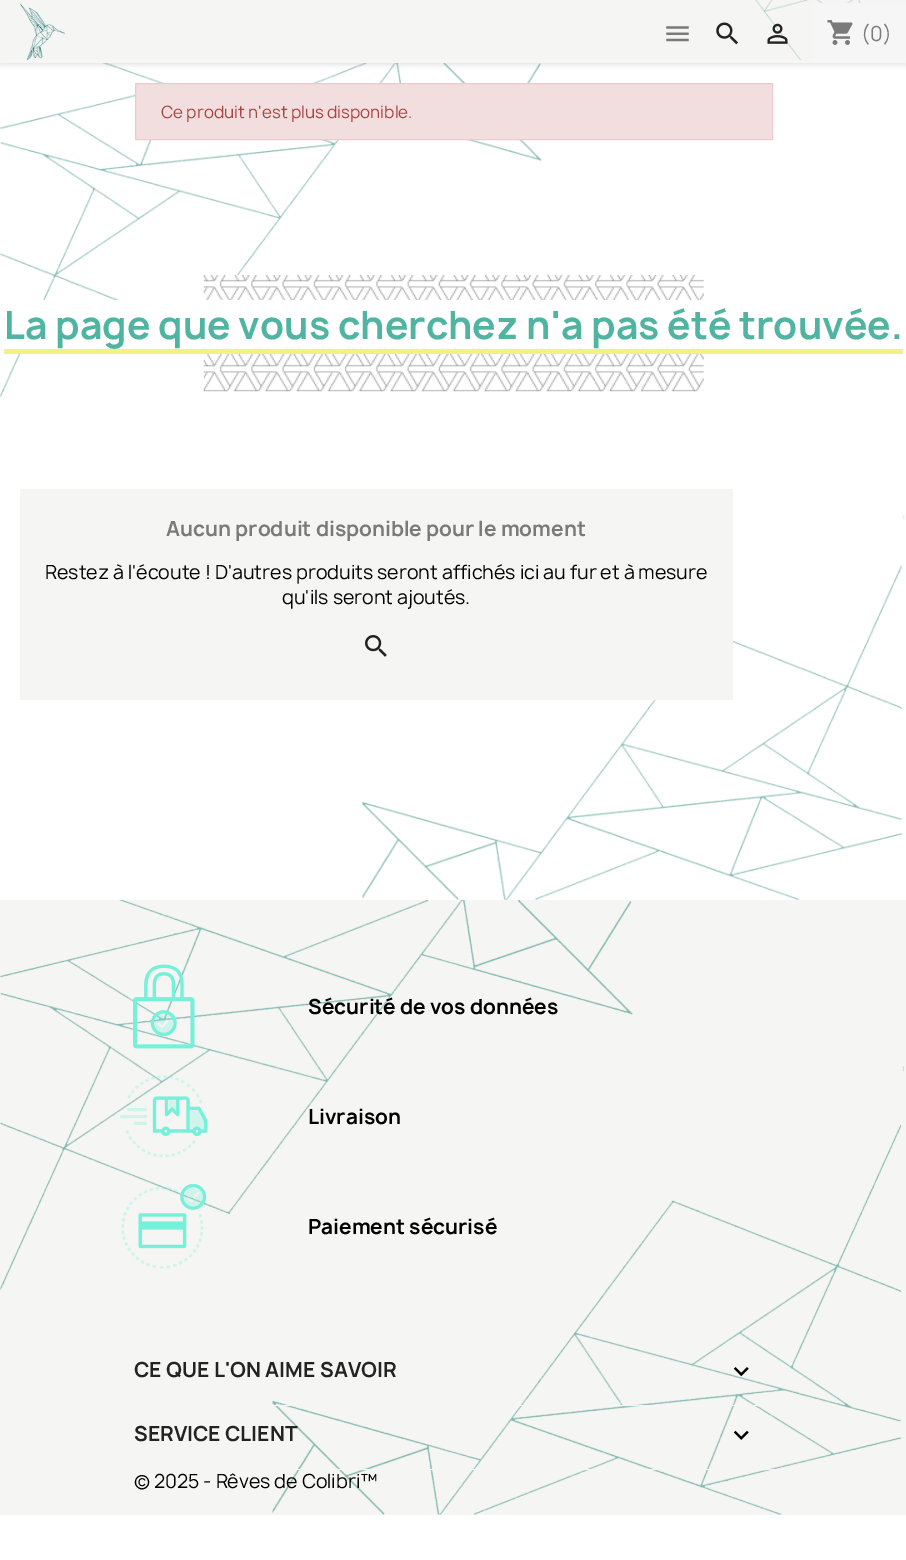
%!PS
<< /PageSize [906 1560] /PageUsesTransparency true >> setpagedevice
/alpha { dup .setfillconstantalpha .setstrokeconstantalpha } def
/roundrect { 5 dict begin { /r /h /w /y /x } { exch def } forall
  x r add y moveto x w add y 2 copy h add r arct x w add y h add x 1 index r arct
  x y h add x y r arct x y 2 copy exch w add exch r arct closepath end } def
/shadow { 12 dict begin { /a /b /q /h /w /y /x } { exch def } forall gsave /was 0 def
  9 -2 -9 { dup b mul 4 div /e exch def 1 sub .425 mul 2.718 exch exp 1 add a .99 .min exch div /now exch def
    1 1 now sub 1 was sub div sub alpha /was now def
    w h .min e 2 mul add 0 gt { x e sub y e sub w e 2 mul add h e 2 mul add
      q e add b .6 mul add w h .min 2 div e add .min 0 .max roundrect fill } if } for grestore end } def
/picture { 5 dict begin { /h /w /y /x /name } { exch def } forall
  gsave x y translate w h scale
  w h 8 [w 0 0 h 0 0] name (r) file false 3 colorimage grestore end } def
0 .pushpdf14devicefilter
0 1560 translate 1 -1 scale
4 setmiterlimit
1 setgray
0 0 906 1560 rectfill
(img7.rgb) 0 63 905 837 picture
0 setgray
0 3 906 62 0 3 0.11 shadow
0.961 0.961 0.953 setrgbcolor
0 0 906 60 rectfill
(img1.rgb) 755 0 106 60 picture
0.965 setgray
0 60 811 3 rectfill
(img2.rgb) 20 3 45 57 picture
(img3.rgb) 666 26 23 16 picture
(img4.rgb) 716 22 22 23 picture
(img5.rgb) 767 23 21 21 picture
811 3 95 60 rectfill
(img6.rgb) 827 20 26 25 picture
/Manrope-Regular [20 0 0 -20 0 0] selectfont
0.478 setgray
861 41 moveto (\(0\)) show
0.949 0.871 0.871 setrgbcolor
newpath 135.5 83.5 moveto 772.5 83.5 lineto 772.5 139.5 lineto 135.5 139.5 lineto closepath gsave fill grestore
0.922 0.8 0.8 setrgbcolor
stroke
/Manrope-Regular [16.25 0 0 -16.25 0 0] selectfont
0.663 0.267 0.259 setrgbcolor
161 118 moveto (Ce produit n'est plus disponible.) show
1 setgray
20 300 200 49 rectfill
(img8.rgb) 203 275 501 25 picture
/Manrope-Bold [37.5 0 0 -37.5 0 0] selectfont
0.31 0.71 0.631 setrgbcolor
4 339 moveto (La page que vous cherchez n'a pas été trouvée.) show
(img9.rgb) 203 348 501 44 picture
0.941 0.949 0.506 setrgbcolor
4 349 899 5 rectfill
0.961 0.961 0.953 setrgbcolor
20 489 713 211 rectfill
/Manrope-Bold [20 0 0 -20 0 0] selectfont
0.478 setgray
166 536 moveto (Aucun produit disponible pour le moment) show
/Manrope-Regular [18.75 0 0 -18.75 0 0] selectfont
0 setgray
45 579 moveto (Restez à l'écoute ! D'autres produits seront affichés ici au fur et à mesure) show
282 604 moveto (qu'ils seront ajoutés.) show
(img10.rgb) 365 635 22 22 picture
0.961 0.961 0.953 setrgbcolor
0 900 906 615 rectfill
(img11.rgb) 0 900 904 615 picture
(img12.rgb) 133 964 62 85 picture
/Manrope-Bold [20 0 0 -20 0 0] selectfont
0 setgray
308 1014 moveto (Sécurité de vos données) show
(img13.rgb) 120 1075 88 83 picture
308 1124 moveto (Livraison) show
(img14.rgb) 121 1183 86 86 picture
308 1234 moveto (Paiement sécurisé) show
0.965 setgray
123 1405 662 1 rectfill
0.137 setgray
134 1377 moveto (CE QUE L'ON AIME SAVOIR) show
(img15.rgb) 733 1367 16 10 picture
0.965 setgray
123 1469 662 1 rectfill
0.137 setgray
134 1441 moveto (SERVICE CLIENT) show
(img16.rgb) 733 1430 16 10 picture
/Manrope-Regular [18.75 0 0 -18.75 0 0] selectfont
0 setgray
134 1488 moveto (© 2025 - Rêves de Colibri™) show
.poppdf14devicefilter showpage
